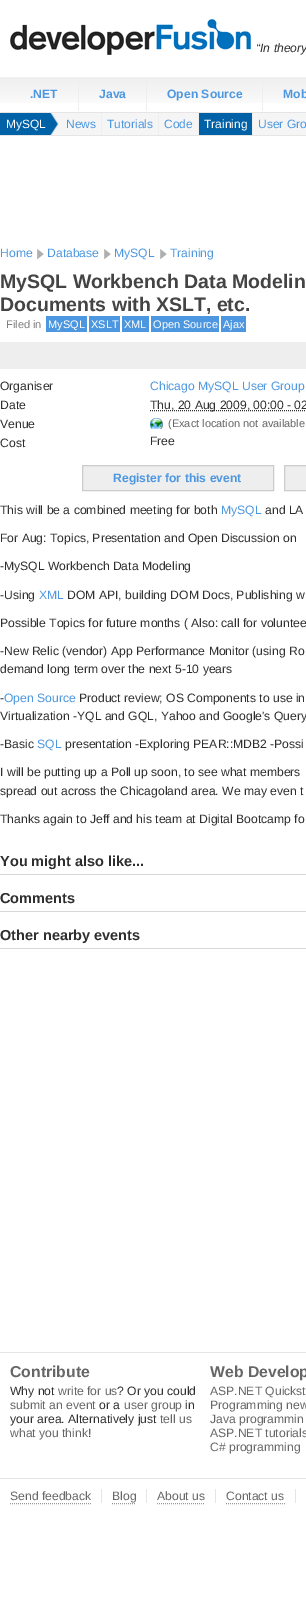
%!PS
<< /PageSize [306 1598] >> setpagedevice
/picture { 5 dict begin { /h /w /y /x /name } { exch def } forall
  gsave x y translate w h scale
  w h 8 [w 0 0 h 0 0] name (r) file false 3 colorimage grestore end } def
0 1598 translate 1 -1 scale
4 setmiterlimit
1 setgray
0 0 306 1598 rectfill
(img1.rgb) 10 19 241 36 picture
/LiberationSans-Italic [12.15 0 0 -12.15 0 0] selectfont
0.18 setgray
256 52 moveto (“In theory) show
(img2.rgb) 0 77 306 26 picture
0.898 setgray
0 112 306 1 rectfill
0.933 setgray
78 77 1 34 rectfill
/LiberationSans-Bold [12.15 0 0 -12.15 0 0] selectfont
0.302 0.592 0.878 setrgbcolor
30 98 moveto (.NET) show
0.933 setgray
146 77 1 34 rectfill
0.302 0.592 0.878 setrgbcolor
99 98 moveto (Java) show
0.933 setgray
262 77 1 34 rectfill
0.302 0.592 0.878 setrgbcolor
167 98 moveto (Open Source) show
283 98 moveto (Mob) show
0.961 setgray
51 113 255 22 rectfill
0.898 setgray
0 135 306 1 rectfill
(img3.rgb) 0 113 59 22 picture
/LiberationSans-Regular [12 0 0 -12 0 0] selectfont
1 setgray
6 128 moveto (MySQL) show
0.933 setgray
101 113 1 22 rectfill
0.302 0.592 0.878 setrgbcolor
66 128 moveto (News) show
0.933 setgray
158 113 1 22 rectfill
0.302 0.592 0.878 setrgbcolor
107 128 moveto (Tutorials) show
0.933 setgray
198 113 1 22 rectfill
0.302 0.592 0.878 setrgbcolor
164 128 moveto (Code) show
0 0.38 0.651 setrgbcolor
199 113 53 22 rectfill
0.933 setgray
252 113 1 22 rectfill
1 setgray
204 128 moveto (Training) show
0.302 0.592 0.878 setrgbcolor
258 128 moveto (User Gro) show
/LiberationSans-Regular [12.15 0 0 -12.15 0 0] selectfont
0 257 moveto (Home) show
(img4.rgb) 37 249 7 11 picture
47 257 moveto (Database) show
(img4.rgb) 104 249 7 11 picture
114 257 moveto (MySQL) show
(img4.rgb) 160 249 7 11 picture
170 257 moveto (Training) show
/LiberationSans-Bold [19.5 0 0 -19.5 0 0] selectfont
0.267 setgray
0 288 moveto (MySQL Workbench Data Modelin) show
0 311 moveto (Documents with XSLT, etc.) show
/LiberationSans-Regular [11 0 0 -11 0 0] selectfont
0.502 setgray
6 328 moveto (Filed in) show
0.302 0.592 0.878 setrgbcolor
46 316 41 16 rectfill
1 setgray
48 328 moveto (MySQL) show
0.302 0.592 0.878 setrgbcolor
89 316 31 16 rectfill
1 setgray
91 328 moveto (XSLT) show
0.302 0.592 0.878 setrgbcolor
122 316 27 16 rectfill
1 setgray
124 328 moveto (XML) show
0.302 0.592 0.878 setrgbcolor
151 316 68 16 rectfill
1 setgray
153 328 moveto (Open Source) show
0.302 0.592 0.878 setrgbcolor
221 316 25 16 rectfill
1 setgray
223 328 moveto (Ajax) show
0.933 setgray
0 342 306 27 rectfill
/LiberationSans-Regular [12.15 0 0 -12.15 0 0] selectfont
0.18 setgray
0 390 moveto (Organiser) show
0.302 0.592 0.878 setrgbcolor
150 390 moveto (Chicago MySQL User Group) show
0.18 setgray
0 409 moveto (Date) show
[1 1] 0 setdash
newpath 150 410.5 moveto 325 410.5 lineto stroke
150 409 moveto (Thu, 20 Aug 2009, 00:00 - 02) show
0 428 moveto (Venue) show
(img5.rgb) 150 418 13 11 picture
/LiberationSans-Regular [11 0 0 -11 0 0] selectfont
0.4 setgray
168 427 moveto (\(Exact location not available) show
/LiberationSans-Regular [12.15 0 0 -12.15 0 0] selectfont
0.18 setgray
0 447 moveto (Cost) show
150 445 moveto (Free) show
0.933 setgray
newpath 82.5 465.5 moveto 273.5 465.5 lineto 273.5 490.5 lineto 82.5 490.5 lineto closepath gsave fill grestore
0.8 setgray
[] 0 setdash
stroke
/LiberationSans-Bold [12.15 0 0 -12.15 0 0] selectfont
0.302 0.592 0.878 setrgbcolor
113 482 moveto (Register for this event) show
0.933 setgray
newpath 284.5 465.5 moveto 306.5 465.5 lineto 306.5 490.5 lineto 284.5 490.5 lineto closepath gsave fill grestore
0.8 setgray
stroke
/LiberationSans-Regular [12.15 0 0 -12.15 0 0] selectfont
0.18 setgray
0 514 moveto (This will be a combined meeting for both) show
0.302 0.592 0.878 setrgbcolor
221 514 moveto (MySQL) show
0.18 setgray
265 514 moveto (and LA) show
0 542 moveto (For Aug: Topics, Presentation and Open Discussion on) show
0 570 moveto (-MySQL Workbench Data Modeling) show
0 599 moveto (-Using) show
0.302 0.592 0.878 setrgbcolor
39 599 moveto (XML) show
0.18 setgray
67 599 moveto (DOM API, building DOM Docs, Publishing w) show
0 627 moveto (Possible Topics for future months \( Also: call for voluntee) show
0 655 moveto (-New Relic \(vendor\) App Performance Monitor \(using Ro) show
0 673 moveto (demand long term over the next 5-10 years) show
0 702 moveto (-) show
0.302 0.592 0.878 setrgbcolor
4 702 moveto (Open Source) show
0.18 setgray
79 702 moveto (Product review; OS Components to use in) show
0 720 moveto (Virtualization -YQL and GQL, Yahoo and Google's Query) show
0 748 moveto (-Basic) show
0.302 0.592 0.878 setrgbcolor
37 748 moveto (SQL) show
0.18 setgray
65 748 moveto (presentation -Exploring PEAR::MDB2 -Possi) show
0 776 moveto (I will be putting up a Poll up soon, to see what members) show
0 795 moveto (spread out across the Chicagoland area. We may even t) show
0 823 moveto (Thanks again to Jeff and his team at Digital Bootcamp fo) show
0.847 setgray
0 874 306 1 rectfill
/LiberationSans-Bold [14.5 0 0 -14.5 0 0] selectfont
0.18 setgray
0 866 moveto (You might also like...) show
0.847 setgray
0 911 306 1 rectfill
0.18 setgray
0 903 moveto (Comments) show
0.847 setgray
0 948 306 1 rectfill
0.18 setgray
0 940 moveto (Other nearby events) show
0.898 setgray
0 1352 306 1 rectfill
/LiberationSans-Bold [15.75 0 0 -15.75 0 0] selectfont
0.4 setgray
10 1377 moveto (Contribute) show
/LiberationSans-Regular [12.15 0 0 -12.15 0 0] selectfont
0.18 setgray
10 1395 moveto (Why not) show
0.4 setgray
58 1395 moveto (write for us) show
0.18 setgray
117 1395 moveto (? Or you could) show
0.4 setgray
10 1409 moveto (submit an event) show
0.18 setgray
99 1409 moveto (or a) show
0.4 setgray
124 1409 moveto (user group) show
0.18 setgray
185 1409 moveto (in) show
10 1423 moveto (your area. Alternatively just) show
0.4 setgray
160 1423 moveto (tell us) show
10 1437 moveto (what you think) show
0.18 setgray
88 1437 moveto (!) show
/LiberationSans-Bold [15.75 0 0 -15.75 0 0] selectfont
0.4 setgray
210 1377 moveto (Web Develop) show
/LiberationSans-Regular [12.15 0 0 -12.15 0 0] selectfont
210 1395 moveto (ASP.NET Quickst) show
210 1409 moveto (Programming new) show
210 1423 moveto (Java programmin) show
210 1437 moveto (ASP.NET tutorials) show
210 1451 moveto (C# programming) show
0.898 setgray
0 1478 306 1 rectfill
101 1489 1 14 rectfill
0.4 setgray
10 1500 moveto (Send feedback) show
0.6 setgray
[1 1] 0 setdash
newpath 10 1503.5 moveto 91 1503.5 lineto stroke
0.898 setgray
146 1489 1 14 rectfill
0.4 setgray
112 1500 moveto (Blog) show
0.6 setgray
newpath 112 1503.5 moveto 136 1503.5 lineto stroke
0.898 setgray
215 1489 1 14 rectfill
0.4 setgray
157 1500 moveto (About us) show
0.6 setgray
newpath 157 1503.5 moveto 205 1503.5 lineto stroke
0.898 setgray
295 1489 1 14 rectfill
0.4 setgray
226 1500 moveto (Contact us) show
0.6 setgray
newpath 226 1503.5 moveto 285 1503.5 lineto stroke
showpage
